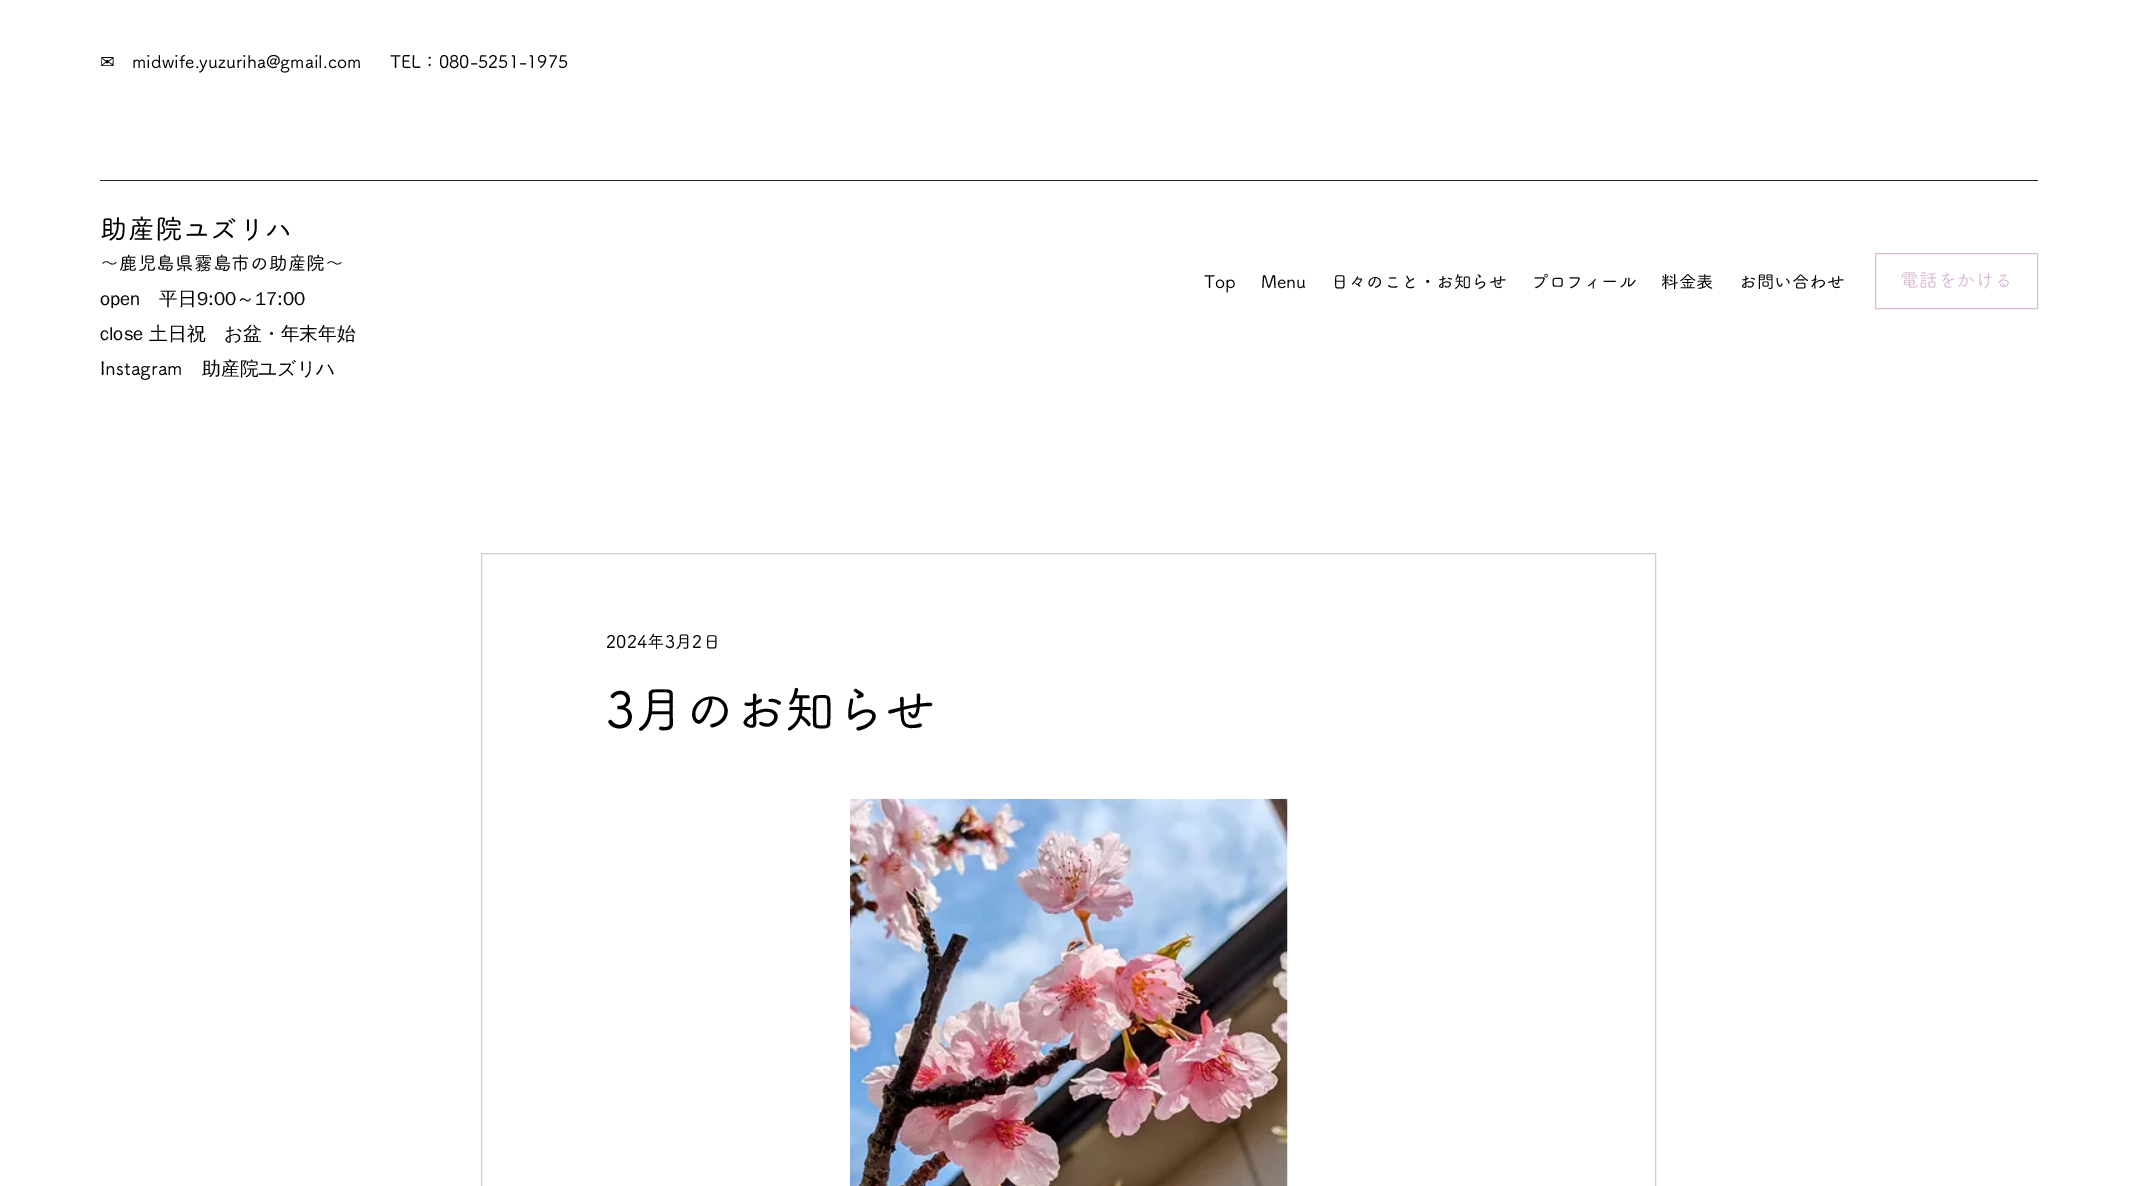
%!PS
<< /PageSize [2137 1186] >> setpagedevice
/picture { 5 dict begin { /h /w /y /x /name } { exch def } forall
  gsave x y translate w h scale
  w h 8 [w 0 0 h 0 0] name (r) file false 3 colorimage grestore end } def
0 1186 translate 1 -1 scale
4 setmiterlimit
1 setgray
0 0 2137 1186 rectfill
/DejaVuSans-Regular [17.5 0 0 -17.5 0 0] selectfont
0 setgray
100 68 moveto (✉) show
/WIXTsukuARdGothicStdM-Medium [17.5 0 0 -17.5 0 0] selectfont
132 68 moveto (midwife.yuzuriha@gmail.com) show
390 68 moveto (TEL：080-5251-1975) show
0.149 setgray
100 180 1938 1 rectfill
/WIXTsukuARdGothicStdM-Medium [27.5 0 0 -27.5 0 0] selectfont
0 setgray
100 239 moveto (助産院ユズリハ) show
/WIXTsukuARdGothicStdM-Medium [18.75 0 0 -18.75 0 0] selectfont
100 270 moveto (～鹿児島県霧島市の助産院～) show
/WenQuanYiZenHei-Medium [18.75 0 0 -18.75 0 0] selectfont
100 305 moveto (open　平日9:00～17:00) show
100 340 moveto (close 土日祝　お盆・年末年始) show
/WIXTsukuARdGothicStdM-Medium [18.75 0 0 -18.75 0 0] selectfont
100 375 moveto (Instagram) show
/WenQuanYiZenHei-Medium [18.75 0 0 -18.75 0 0] selectfont
202 375 moveto (助産院ユズリハ) show
/WIXTsukuARdGothicStdM-Medium [17.5 0 0 -17.5 0 0] selectfont
1204 288 moveto (Top) show
1261 288 moveto (Menu) show
1331 288 moveto (日々のこと・お知らせ) show
1531 288 moveto (プロフィール) show
1661 288 moveto (料金表) show
1739 288 moveto (お問い合わせ) show
0.859 0.733 0.839 setrgbcolor
1875.5 253.5 162 55 rectstroke
/WIXTsukuARdGothicStdM-Medium [18.75 0 0 -18.75 0 0] selectfont
1900 287 moveto (電話をかける) show
0.812 setgray
481.5 553.5 1174 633 rectstroke
/WIXTsukuARdGothicStdM-Medium [17.5 0 0 -17.5 0 0] selectfont
0 setgray
606 648 moveto (2024年3月2日) show
/WIXTsukuARdGothicStdM-Medium [50 0 0 -50 0 0] selectfont
606 728 moveto (3月のお知らせ) show
(img1.rgb) 850 798 438 388 picture
showpage
